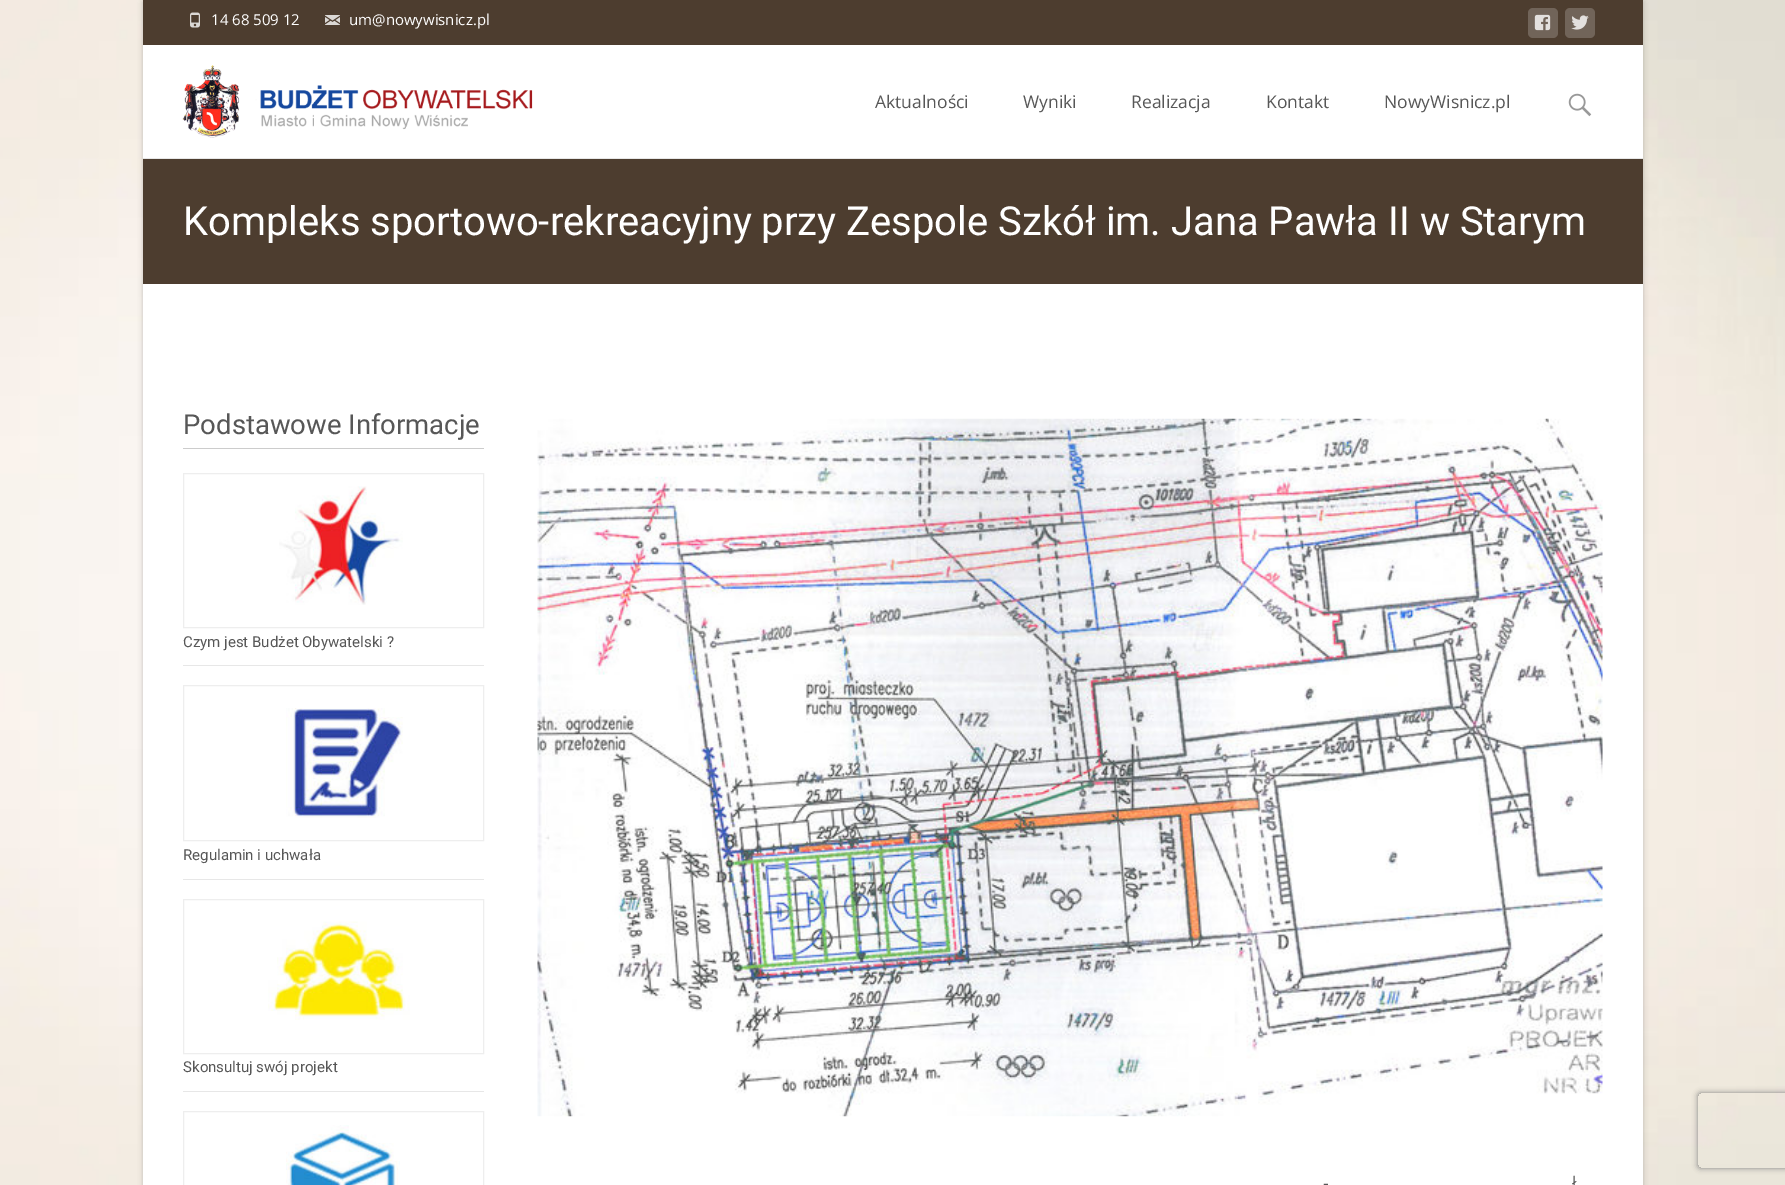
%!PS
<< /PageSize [1785 1185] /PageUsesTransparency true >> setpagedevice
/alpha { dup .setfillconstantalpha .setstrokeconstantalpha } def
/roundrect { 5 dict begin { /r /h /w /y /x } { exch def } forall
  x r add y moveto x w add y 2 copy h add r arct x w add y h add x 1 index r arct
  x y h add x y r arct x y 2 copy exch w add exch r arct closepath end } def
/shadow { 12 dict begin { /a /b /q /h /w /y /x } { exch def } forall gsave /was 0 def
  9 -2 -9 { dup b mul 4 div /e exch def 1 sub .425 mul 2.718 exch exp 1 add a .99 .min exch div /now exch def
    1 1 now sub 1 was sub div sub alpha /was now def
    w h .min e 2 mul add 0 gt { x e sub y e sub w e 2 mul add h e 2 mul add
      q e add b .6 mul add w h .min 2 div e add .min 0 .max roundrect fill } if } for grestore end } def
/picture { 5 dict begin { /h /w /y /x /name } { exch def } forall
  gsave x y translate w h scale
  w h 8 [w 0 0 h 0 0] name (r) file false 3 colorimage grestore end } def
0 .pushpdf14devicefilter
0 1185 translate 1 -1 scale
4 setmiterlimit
1 setgray
0 0 1785 1185 rectfill
(img1.rgb) 0 0 1785 1185 picture
0 setgray
143 0 1500 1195 2.5 2.5 0.1 shadow
143 0 1500 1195 2.5 2.5 0.1 shadow
1 setgray
143 45 1500 1140 rectfill
0.302 0.239 0.184 setrgbcolor
143 0 1500 45 rectfill
(img2.rgb) 190 12 10 16 picture
/OpenSans-Regular [15 0 0 -15 0 0] selectfont
1 setgray
211 25 moveto (14 68 509 12) show
(img3.rgb) 325 15 15 10 picture
349 25 moveto (um@nowywisnicz.pl) show
0.443 0.392 0.349 setrgbcolor
1528 8 30 30 5 roundrect fill
(img4.rgb) 1534 14 17 17 picture
1565 8 30 30 5 roundrect fill
(img5.rgb) 1571 15 18 15 picture
0.906 setgray
143 158 1500 1 rectfill
(img6.rgb) 182 65 351 73 picture
/OpenSans-Regular [17.5 0 0 -17.5 0 0] selectfont
0.341 setgray
875 108 moveto (Aktualności) show
1023 108 moveto (Wyniki) show
1131 108 moveto (Realizacja) show
1266 108 moveto (Kontakt) show
1384 108 moveto (NowyWisnicz.pl) show
(img7.rgb) 1568 93 24 24 picture
0.302 0.239 0.184 setrgbcolor
143 159 1500 125 rectfill
/Roboto-Regular [40 0 0 -40 0 0] selectfont
1 setgray
183 235 moveto (Kompleks sportowo-rekreacyjny przy Zespole Szkół im. Jana Pawła II w Starym) show
0.8 setgray
183 448 301 1 rectfill
/Roboto-Regular [27.5 0 0 -27.5 0 0] selectfont
0.341 setgray
183 434 moveto (Podstawowe Informacje) show
0.906 setgray
183 665 301 1 rectfill
0.933 setgray
183.5 473.5 300 154 rectstroke
(img8.rgb) 279 486 124 119 picture
/Roboto-Regular [15 0 0 -15 0 0] selectfont
0.341 setgray
183 647 moveto (Czym jest Budżet Obywatelski ?) show
0.906 setgray
183 879 301 1 rectfill
0.933 setgray
183.5 685.5 300 155 rectstroke
(img9.rgb) 286 708 117 110 picture
0.341 setgray
183 860 moveto (Regulamin i uchwała) show
0.906 setgray
183 1091 301 1 rectfill
0.933 setgray
183.5 899.5 300 154 rectstroke
(img10.rgb) 268 921 142 99 picture
0.341 setgray
183 1072 moveto (Skonsultuj swój projekt) show
0.933 setgray
183.5 1111.5 300 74 rectstroke
(img11.rgb) 286 1125 114 60 picture
(img12.rgb) 537 418 1066 699 picture
/OpenSans-Regular [17.5 0 0 -17.5 0 0] selectfont
0.341 setgray
1323 1189 moveto (-) show
1572 1189 moveto (ł) show
gsave
newpath 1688 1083 moveto 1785 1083 lineto 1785 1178 lineto 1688 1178 lineto closepath 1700.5 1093 moveto 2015.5 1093 lineto 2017 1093 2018 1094 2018 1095.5 curveto 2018 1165.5 lineto 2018 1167 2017 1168 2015.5 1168 curveto 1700.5 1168 lineto 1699 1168 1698 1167 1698 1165.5 curveto 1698 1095.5 lineto 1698 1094 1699 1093 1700.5 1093 curveto closepath eoclip newpath
0.502 setgray
1698 1093 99 75 2.5 3 1 shadow
grestore
.poppdf14devicefilter showpage
